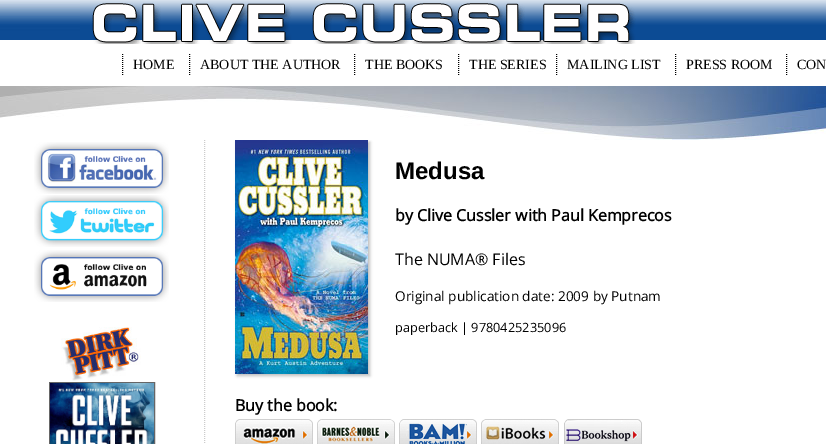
%!PS
<< /PageSize [826 444] /PageUsesTransparency true >> setpagedevice
/alpha { dup .setfillconstantalpha .setstrokeconstantalpha } def
/roundrect { 5 dict begin { /r /h /w /y /x } { exch def } forall
  x r add y moveto x w add y 2 copy h add r arct x w add y h add x 1 index r arct
  x y h add x y r arct x y 2 copy exch w add exch r arct closepath end } def
/shadow { 12 dict begin { /a /b /q /h /w /y /x } { exch def } forall gsave /was 0 def
  9 -2 -9 { dup b mul 4 div /e exch def 1 sub .425 mul 2.718 exch exp 1 add a .99 .min exch div /now exch def
    1 1 now sub 1 was sub div sub alpha /was now def
    w h .min e 2 mul add 0 gt { x e sub y e sub w e 2 mul add h e 2 mul add
      q e add b .6 mul add w h .min 2 div e add .min 0 .max roundrect fill } if } for grestore end } def
/picture { 5 dict begin { /h /w /y /x /name } { exch def } forall
  gsave x y translate w h scale
  w h 8 [w 0 0 h 0 0] name (r) file false 3 colorimage grestore end } def
0 .pushpdf14devicefilter
0 444 translate 1 -1 scale
4 setmiterlimit
1 setgray
0 0 826 444 rectfill
(img1.rgb) 0 0 80 40 picture
(img2.rgb) 80 0 746 44 picture
0 setgray
[1 1] 0 setdash
newpath 122.5 54 moveto 122.5 76 lineto stroke
/LiberationSerif-Regular [14 0 0 -14 0 0] selectfont
133 69 moveto (HOME) show
newpath 189.5 54 moveto 189.5 76 lineto stroke
200 69 moveto (ABOUT THE AUTHOR) show
newpath 354.5 54 moveto 354.5 76 lineto stroke
365 69 moveto (THE BOOKS) show
newpath 458.5 54 moveto 458.5 76 lineto stroke
469 69 moveto (THE SERIES) show
newpath 556.5 54 moveto 556.5 76 lineto stroke
567 69 moveto (MAILING LIST) show
newpath 675.5 54 moveto 675.5 76 lineto stroke
686 69 moveto (PRESS ROOM) show
newpath 786.5 54 moveto 786.5 76 lineto stroke
797 69 moveto (CON) show
0.753 setgray
237 142 133 234 0 1.5 1 shadow
(img3.rgb) 0 86 826 54 picture
0.8 setgray
newpath 204.5 140 moveto 204.5 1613 lineto stroke
(img4.rgb) 34 142 135 52 picture
(img5.rgb) 34 195 135 52 picture
(img6.rgb) 34 250 135 52 picture
(img7.rgb) 61 327 80 54 picture
0.4 setgray
[] 0 setdash
49.5 382.5 105 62 rectstroke
(img8.rgb) 50 383 104 61 picture
(img9.rgb) 235 140 133 234 picture
/LiberationSans-Bold [24 0 0 -24 0 0] selectfont
0 setgray
395 179 moveto (Medusa) show
/OpenSans-Bold [16 0 0 -16 0 0] selectfont
395 221 moveto (by Clive Cussler with Paul Kemprecos) show
/OpenSans-Regular [16 0 0 -16 0 0] selectfont
395 265 moveto (The NUMA® Files) show
/OpenSans-Regular [13.6 0 0 -13.6 0 0] selectfont
395 301 moveto (Original publication date: 2009 by Putnam) show
/OpenSans-Regular [12.75 0 0 -12.75 0 0] selectfont
395 332 moveto (paperback | 9780425235096) show
/OpenSans-Bold [16 0 0 -16 0 0] selectfont
235 411 moveto (Buy the book:) show
(img10.rgb) 235 419 78 25 picture
(img11.rgb) 317 419 78 25 picture
(img12.rgb) 399 419 78 25 picture
(img13.rgb) 481 419 78 25 picture
(img14.rgb) 564 419 78 25 picture
.poppdf14devicefilter showpage
